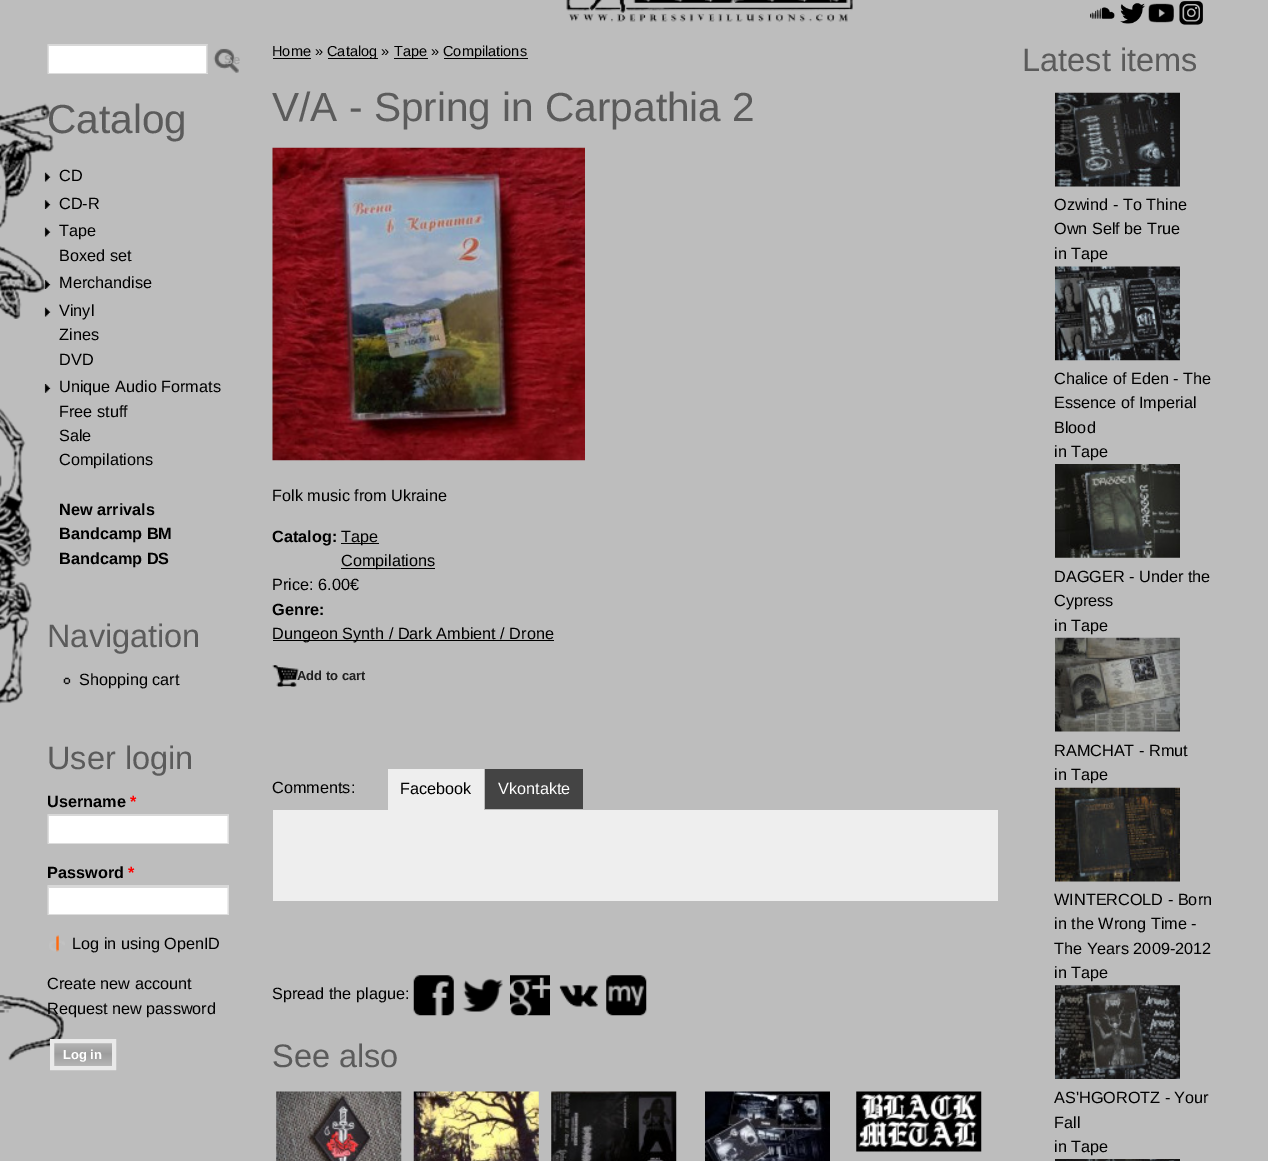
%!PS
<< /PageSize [1268 1161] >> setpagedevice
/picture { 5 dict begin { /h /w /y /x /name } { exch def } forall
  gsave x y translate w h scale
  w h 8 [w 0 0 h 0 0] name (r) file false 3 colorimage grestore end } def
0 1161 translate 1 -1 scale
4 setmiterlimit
0.741 setgray
0 0 1268 1161 rectfill
(img1.rgb) 0 103 64 958 picture
(img2.rgb) 566 0 287 22 picture
(img3.rgb) 1090 7 25 12 picture
(img4.rgb) 1120 3 25 21 picture
(img5.rgb) 1148 3 26 20 picture
(img6.rgb) 1179 1 24 24 picture
1 setgray
49 46 157 27 rectfill
0.847 setgray
newpath 48 44 moveto 208 44 lineto 206 46 lineto 49 46 lineto closepath fill
0.867 setgray
newpath 207.5 44 moveto 207.5 74 lineto 206 72.5 lineto 206 46 lineto closepath fill
48 73 160 1 rectfill
newpath 47.5 74 moveto 47.5 44 lineto 49 46 lineto 49 72.5 lineto closepath fill
(img7.rgb) 213 48 26 25 picture
/LiberationSans-Bold [13 0 0 -13 0 0] selectfont
0.639 setgray
224 64 moveto (Se) show
/LiberationSans-Regular [40.6 0 0 -40.6 0 0] selectfont
0.357 setgray
47 133 moveto (Catalog) show
(img8.rgb) 44 172 7 10 picture
/LiberationSans-Regular [16.25 0 0 -16.25 0 0] selectfont
0 setgray
59 181 moveto (CD) show
(img9.rgb) 44 200 7 9 picture
59 209 moveto (CD-R) show
(img8.rgb) 44 227 7 10 picture
59 236 moveto (Tape) show
59 261 moveto (Boxed set) show
(img10.rgb) 44 280 7 9 picture
59 288 moveto (Merchandise) show
(img8.rgb) 44 307 7 10 picture
59 316 moveto (Vinyl) show
59 340 moveto (Zines) show
59 365 moveto (DVD) show
(img11.rgb) 44 384 7 9 picture
59 392 moveto (Unique Audio Formats) show
59 417 moveto (Free stuff) show
59 441 moveto (Sale) show
59 465 moveto (Compilations) show
/LiberationSans-Bold [16.25 0 0 -16.25 0 0] selectfont
59 515 moveto (New arrivals) show
59 539 moveto (Bandcamp BM) show
59 564 moveto (Bandcamp DS) show
/LiberationSans-Regular [32.5 0 0 -32.5 0 0] selectfont
0.357 setgray
47 647 moveto (Navigation) show
(img12.rgb) 63 677 8 8 picture
/LiberationSans-Regular [16.25 0 0 -16.25 0 0] selectfont
0 setgray
79 685 moveto (Shopping cart) show
/LiberationSans-Regular [32.5 0 0 -32.5 0 0] selectfont
0.357 setgray
47 769 moveto (User login) show
/LiberationSans-Bold [16.25 0 0 -16.25 0 0] selectfont
0 setgray
47 807 moveto (Username) show
1 0 0 setrgbcolor
130 807 moveto (*) show
1 setgray
49 816 179 27 rectfill
0.847 setgray
newpath 48 814 moveto 229 814 lineto 228 816 lineto 49 816 lineto closepath fill
0.867 setgray
newpath 229 814 moveto 229 844 lineto 227.5 842.5 lineto 227.5 816 lineto closepath fill
48 843 181 1 rectfill
newpath 47.5 844 moveto 47.5 814 lineto 49 816 lineto 49 842.5 lineto closepath fill
0 setgray
47 878 moveto (Password) show
1 0 0 setrgbcolor
128 878 moveto (*) show
1 setgray
49 888 179 26 rectfill
0.847 setgray
newpath 48 885 moveto 229 885 lineto 228 888 lineto 49 888 lineto closepath fill
0.867 setgray
newpath 229 885 moveto 229 915 lineto 227.5 914 lineto 227.5 887.5 lineto closepath fill
48 914 181 1 rectfill
newpath 47.5 915 moveto 47.5 885 lineto 49 887.5 lineto 49 914 lineto closepath fill
(img13.rgb) 49 935 16 17 picture
/LiberationSans-Regular [16.25 0 0 -16.25 0 0] selectfont
0 setgray
72 949 moveto (Log in using OpenID) show
47 989 moveto (Create new account) show
47 1014 moveto (Request new password) show
gsave newpath 54 1043 moveto 112 1043 lineto 112 1066 lineto 54 1066 lineto closepath clip newpath
<< /ShadingType 2 /ColorSpace /DeviceRGB /Coords [83 1043 83 1066] /Extend [true true] /Function << /FunctionType 3 /Domain [0 1] /Functions [<< /FunctionType 2 /Domain [0 1] /C0 [0.71 0.71 0.71] /C1 [0.616 0.616 0.616] /N 1 >> << /FunctionType 2 /Domain [0 1] /C0 [0.616 0.616 0.616] /C1 [0.71 0.71 0.71] /N 1 >>] /Bounds [0.47] /Encode [0 1 0 1] >> >> shfill grestore
0.914 setgray
4 setlinewidth
52 1041 62 27 rectstroke
/LiberationSans-Bold [13 0 0 -13 0 0] selectfont
1 setgray
63 1059 moveto (Log in) show
/LiberationSans-Regular [14.5 0 0 -14.5 0 0] selectfont
0 setgray
272 56 moveto (Home ») show
273 58 38 1 rectfill
328 58 50 1 rectfill
327 56 moveto (Catalog ») show
394 58 34 1 rectfill
394 56 moveto (Tape ») show
444 58 84 1 rectfill
443 56 moveto (Compilations) show
/LiberationSans-Regular [40.6 0 0 -40.6 0 0] selectfont
0.357 setgray
272 121 moveto (V/A - Spring in Carpathia 2) show
(img14.rgb) 272 147 313 314 picture
/LiberationSans-Regular [16.25 0 0 -16.25 0 0] selectfont
0 setgray
272 501 moveto (Folk music from Ukraine) show
/LiberationSans-Bold [16.25 0 0 -16.25 0 0] selectfont
272 542 moveto (Catalog:) show
341 543 38 1 rectfill
/LiberationSans-Regular [16.25 0 0 -16.25 0 0] selectfont
341 542 moveto (Tape) show
341 568 94 1 rectfill
341 566 moveto (Compilations) show
272 590 moveto (Price: 6.00€) show
/LiberationSans-Bold [16.25 0 0 -16.25 0 0] selectfont
272 615 moveto (Genre:) show
273 640 281 1 rectfill
/LiberationSans-Regular [16.25 0 0 -16.25 0 0] selectfont
272 639 moveto (Dungeon Synth / Dark Ambient / Drone) show
(img15.rgb) 272 665 27 22 picture
gsave
273 665 92 21 rectclip
/LiberationSans-Bold [13 0 0 -13 0 0] selectfont
0.125 setgray
297 680 moveto (Add to cart) show
grestore
272 793 moveto (Comments:) show
0.933 setgray
388 769 96 41 rectfill
0 setgray
400 794 moveto (Facebook) show
0.267 setgray
485 769 98 40 rectfill
1 setgray
498 794 moveto (Vkontakte) show
0.933 setgray
273 810 725 91 rectfill
0 setgray
272 999 moveto (Spread the plague:) show
(img16.rgb) 413 975 41 41 picture
(img17.rgb) 462 978 41 34 picture
(img18.rgb) 510 975 40 41 picture
(img19.rgb) 559 985 39 22 picture
(img20.rgb) 606 975 41 41 picture
/LiberationSans-Regular [32.5 0 0 -32.5 0 0] selectfont
0.357 setgray
272 1067 moveto (See also) show
(img21.rgb) 276 1091 126 70 picture
(img22.rgb) 413 1091 126 70 picture
(img23.rgb) 551 1091 126 70 picture
(img24.rgb) 705 1091 125 70 picture
(img25.rgb) 856 1091 126 61 picture
1022 71 moveto (Latest items) show
(img26.rgb) 1055 92 125 95 picture
/LiberationSans-Regular [16.25 0 0 -16.25 0 0] selectfont
0 setgray
1054 210 moveto (Ozwind - To Thine) show
1054 234 moveto (Own Self be True) show
1054 259 moveto (in Tape) show
(img27.rgb) 1055 266 125 95 picture
1054 384 moveto (Chalice of Eden - The) show
1054 408 moveto (Essence of Imperial) show
1054 433 moveto (Blood) show
1054 457 moveto (in Tape) show
(img28.rgb) 1055 464 125 94 picture
1054 582 moveto (DAGGER - Under the) show
1054 606 moveto (Cypress) show
1054 631 moveto (in Tape) show
(img29.rgb) 1055 637 125 95 picture
1054 756 moveto (RAMCHAT - Rmut) show
1054 780 moveto (in Tape) show
(img30.rgb) 1055 787 125 95 picture
1054 905 moveto (WINTERCOLD - Born) show
1054 929 moveto (in the Wrong Time -) show
1054 954 moveto (The Years 2009-2012) show
1054 978 moveto (in Tape) show
(img31.rgb) 1055 985 125 94 picture
1054 1103 moveto (AS'HGOROTZ - Your) show
1054 1128 moveto (Fall) show
1054 1152 moveto (in Tape) show
(img32.rgb) 1055 1159 125 2 picture
showpage
